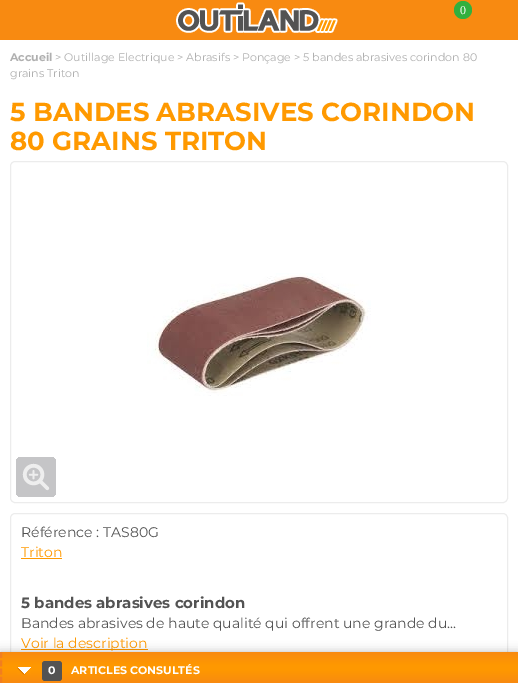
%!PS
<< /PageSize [518 683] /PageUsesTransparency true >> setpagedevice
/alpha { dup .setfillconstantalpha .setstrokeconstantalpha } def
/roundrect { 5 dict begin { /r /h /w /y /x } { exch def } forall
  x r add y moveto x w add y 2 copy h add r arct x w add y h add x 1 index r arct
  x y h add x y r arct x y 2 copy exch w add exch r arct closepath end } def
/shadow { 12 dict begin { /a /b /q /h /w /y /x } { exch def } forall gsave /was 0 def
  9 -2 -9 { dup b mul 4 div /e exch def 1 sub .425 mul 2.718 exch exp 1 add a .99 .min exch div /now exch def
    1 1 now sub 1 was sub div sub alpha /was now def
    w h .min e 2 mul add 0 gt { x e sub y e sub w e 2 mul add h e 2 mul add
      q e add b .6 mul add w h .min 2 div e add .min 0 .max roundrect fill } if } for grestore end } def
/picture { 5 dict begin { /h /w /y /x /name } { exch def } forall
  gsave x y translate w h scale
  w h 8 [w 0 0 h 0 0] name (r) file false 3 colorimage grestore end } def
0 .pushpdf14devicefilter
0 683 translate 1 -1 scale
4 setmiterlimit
1 setgray
0 0 518 683 rectfill
0.973 0.541 0.067 setrgbcolor
0 0 518 40 rectfill
(img1.rgb) 176 2 162 31 picture
0.196 0.69 0.243 setrgbcolor
newpath 463 10 9 0 360 arc closepath fill
/LiberationSerif-Regular [12 0 0 -12 0 0] selectfont
1 setgray
460 14 moveto (0) show
/Montserrat-Bold [11 0 0 -11 0 0] selectfont
0.69 setgray
10 61 moveto (Accueil) show
/Montserrat-Regular [11 0 0 -11 0 0] selectfont
55 61 moveto (> Outillage Electrique > Abrasifs > Ponçage > 5 bandes abrasives corindon 80) show
10 77 moveto (grains Triton) show
/Montserrat-Bold [26 0 0 -26 0 0] selectfont
1 0.6 0 setrgbcolor
10 121 moveto (5 BANDES ABRASIVES CORINDON) show
10 150 moveto (80 GRAINS TRITON) show
0.925 setgray
10.5 161.5 497 341 4.5 roundrect stroke
(img2.rgb) 147 273 224 123 picture
(img3.rgb) 16 457 40 40 picture
10.5 513.5 497 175 4.5 roundrect stroke
/Montserrat-Regular [14 0 0 -14 0 0] selectfont
0.325 setgray
21 537 moveto (Référence : TAS80G) show
1 0.6 0 setrgbcolor
21 557 moveto (Triton) show
21 558 41 1 rectfill
/Montserrat-Bold [15 0 0 -15 0 0] selectfont
0.325 setgray
21 608 moveto (5 bandes abrasives corindon) show
/Montserrat-Regular [14 0 0 -14 0 0] selectfont
21 628 moveto (Bandes abrasives de haute qualité qui offrent une grande du...) show
1 0.6 0 setrgbcolor
21 649 127 1 rectfill
21 648 moveto (Voir la description) show
0 setgray
0 652 518 31 0 5 0.25 shadow
gsave newpath 0 652 moveto 518 652 lineto 518 683 lineto 0 683 lineto closepath clip newpath
<< /ShadingType 2 /ColorSpace /DeviceRGB /Coords [259 652 259 683] /Extend [true true] /Function << /FunctionType 3 /Domain [0 1] /Functions [<< /FunctionType 2 /Domain [0 1] /C0 [0.973 0.541 0.067] /C1 [0.996 0.596 0.004] /N 1 >> << /FunctionType 2 /Domain [0 1] /C0 [0.996 0.596 0.004] /C1 [0.996 0.596 0.004] /N 1 >> << /FunctionType 2 /Domain [0 1] /C0 [0.996 0.596 0.004] /C1 [0.973 0.541 0.067] /N 1 >>] /Bounds [0.4 0.6] /Encode [0 1 0 1 0 1] >> >> shfill grestore
0.949 0.494 0.122 setrgbcolor
2 setlinewidth
[6 2.33] 0 setdash
newpath 1 652 moveto 1 683 lineto stroke
(img4.rgb) 17 667 14 8 picture
0.325 setgray
42 661 20 20 3 roundrect fill
/Montserrat-Bold [11 0 0 -11 0 0] selectfont
1 setgray
48 674 moveto (0) show
71 674 moveto (ARTICLES CONSULTÉS) show
.poppdf14devicefilter showpage
